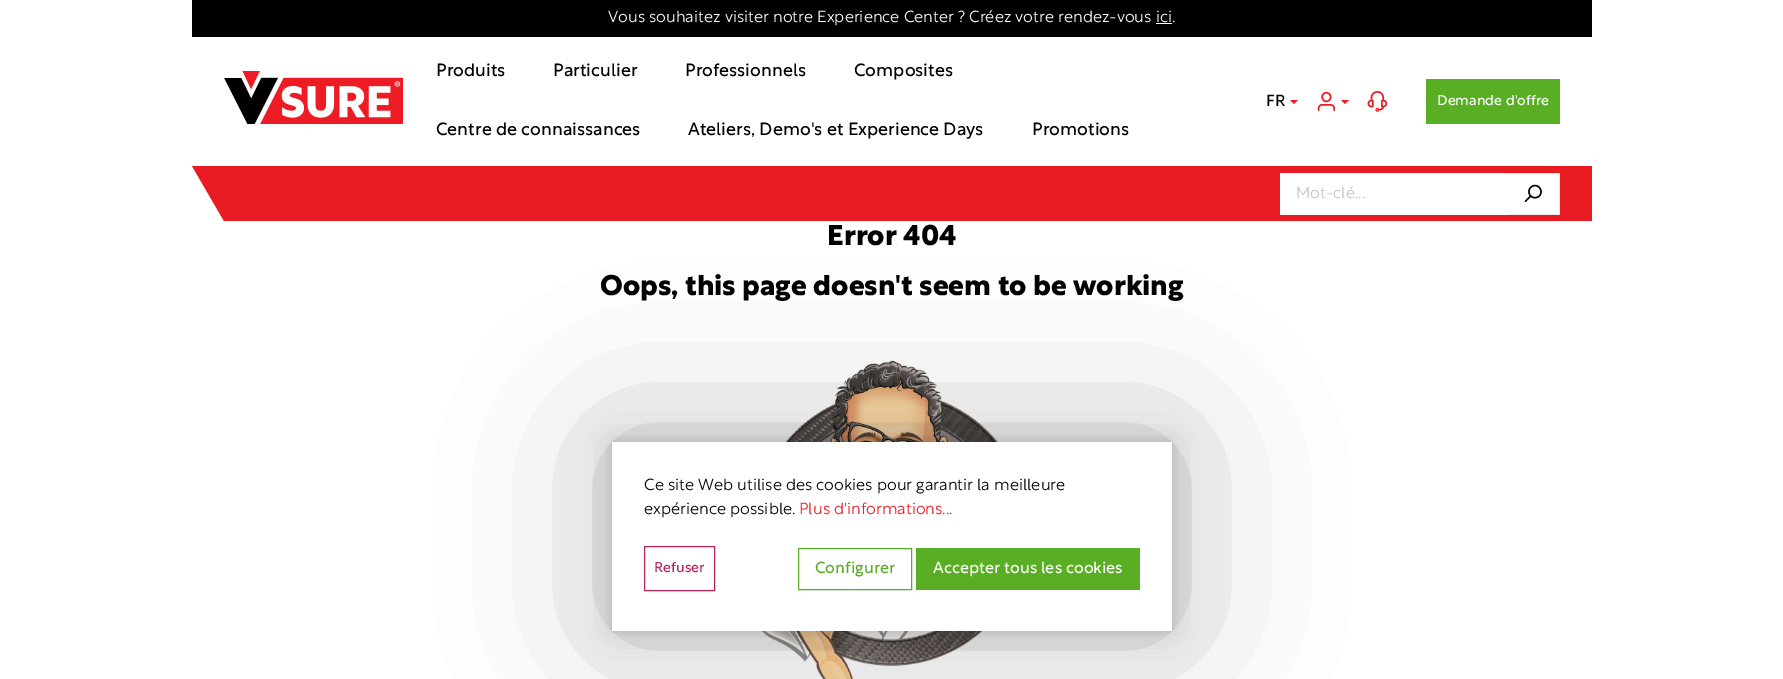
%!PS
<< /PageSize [1783 679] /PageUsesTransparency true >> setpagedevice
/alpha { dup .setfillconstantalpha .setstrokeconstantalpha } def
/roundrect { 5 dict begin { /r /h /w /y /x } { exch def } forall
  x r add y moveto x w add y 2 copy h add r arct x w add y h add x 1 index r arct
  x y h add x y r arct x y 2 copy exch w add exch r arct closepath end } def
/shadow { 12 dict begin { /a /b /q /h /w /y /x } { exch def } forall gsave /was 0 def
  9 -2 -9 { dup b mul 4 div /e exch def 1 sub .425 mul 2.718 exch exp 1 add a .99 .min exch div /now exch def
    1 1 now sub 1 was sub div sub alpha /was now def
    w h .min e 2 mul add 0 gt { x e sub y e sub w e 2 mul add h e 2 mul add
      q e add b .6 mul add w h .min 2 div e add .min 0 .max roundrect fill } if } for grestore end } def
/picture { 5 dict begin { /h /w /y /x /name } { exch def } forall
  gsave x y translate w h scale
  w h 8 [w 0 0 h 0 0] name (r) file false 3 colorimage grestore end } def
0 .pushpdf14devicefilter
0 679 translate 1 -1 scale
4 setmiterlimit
1 setgray
0 0 1783 679 rectfill
0 setgray
192 0 1400 37 rectfill
/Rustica-Light [16 0 0 -16 0 0] selectfont
1 setgray
608 22 moveto (Vous souhaitez visiter notre Experience Center ? Créez votre rendez-vous ici.) show
1156 23 16 1 rectfill
(img1.rgb) 224 71 179 53 picture
/Rustica-Regular [17.6 0 0 -17.6 0 0] selectfont
0 setgray
436 76 moveto (Produits) show
553 76 moveto (Particulier) show
685 76 moveto (Professionnels) show
854 76 moveto (Composites) show
436 135 moveto (Centre de connaissances) show
688 135 moveto (Ateliers, Demo's et Experience Days) show
1032 135 moveto (Promotions) show
/Rustica-Regular [16 0 0 -16 0 0] selectfont
1266 106 moveto (FR) show
0.906 0.106 0.129 setrgbcolor
newpath 1290 100 moveto 1298 100 lineto 1294 104 lineto closepath 1341 100 moveto 1349 100 lineto 1345 104 lineto closepath fill
(img2.rgb) 1317 91 19 20 picture
(img3.rgb) 1367 91 21 21 picture
0.353 0.682 0.141 setrgbcolor
1426 79 134 45 rectfill
/Rustica-Regular [14 0 0 -14 0 0] selectfont
1 setgray
1437 105 moveto (Demande d'offre) show
0.906 0.106 0.129 setrgbcolor
224 166 1368 55 rectfill
newpath 224 166 moveto 224 221 lineto 192 166 lineto closepath fill
1 setgray
1280 173 226 42 rectfill
/Rustica-Light [16 0 0 -16 0 0] selectfont
0.765 setgray
1296 198 moveto (Mot-clé...) show
1 setgray
1506 174 53 40 rectfill
0.925 setgray
1506 173 54 1 rectfill
1559 173 1 42 rectfill
1506 214 54 1 rectfill
(img4.rgb) 1524 184 18 18 picture
/Rustica-Bold [28 0 0 -28 0 0] selectfont
0 setgray
827 245 moveto (Error 404) show
600 295 moveto (Oops, this page doesn't seem to be working) show
(img5.rgb) 754 360 275 319 picture
612 442 560 189 0 80 0.25 shadow
612 442 560 189 0 24 0.11 shadow
612 442 560 189 0 10 0.07 shadow
612 442 560 189 0 3.5 0.06 shadow
1 setgray
612 442 560 189 rectfill
/Rustica-Light [16 0 0 -16 0 0] selectfont
0 setgray
644 490 moveto (Ce site Web utilise des cookies pour garantir la meilleure) show
644 514 moveto (expérience possible.) show
0.906 0.106 0.129 setrgbcolor
799 514 moveto (Plus d'informations...) show
0.718 0.141 0.361 setrgbcolor
644.5 546.5 70 44 rectstroke
/Rustica-Regular [14 0 0 -14 0 0] selectfont
654 572 moveto (Refuser) show
0.353 0.682 0.141 setrgbcolor
798.5 548.5 113 41 rectstroke
/Rustica-Regular [16 0 0 -16 0 0] selectfont
815 573 moveto (Configurer) show
916 548 224 42 rectfill
1 setgray
933 573 moveto (Accepter tous les cookies) show
.poppdf14devicefilter showpage
